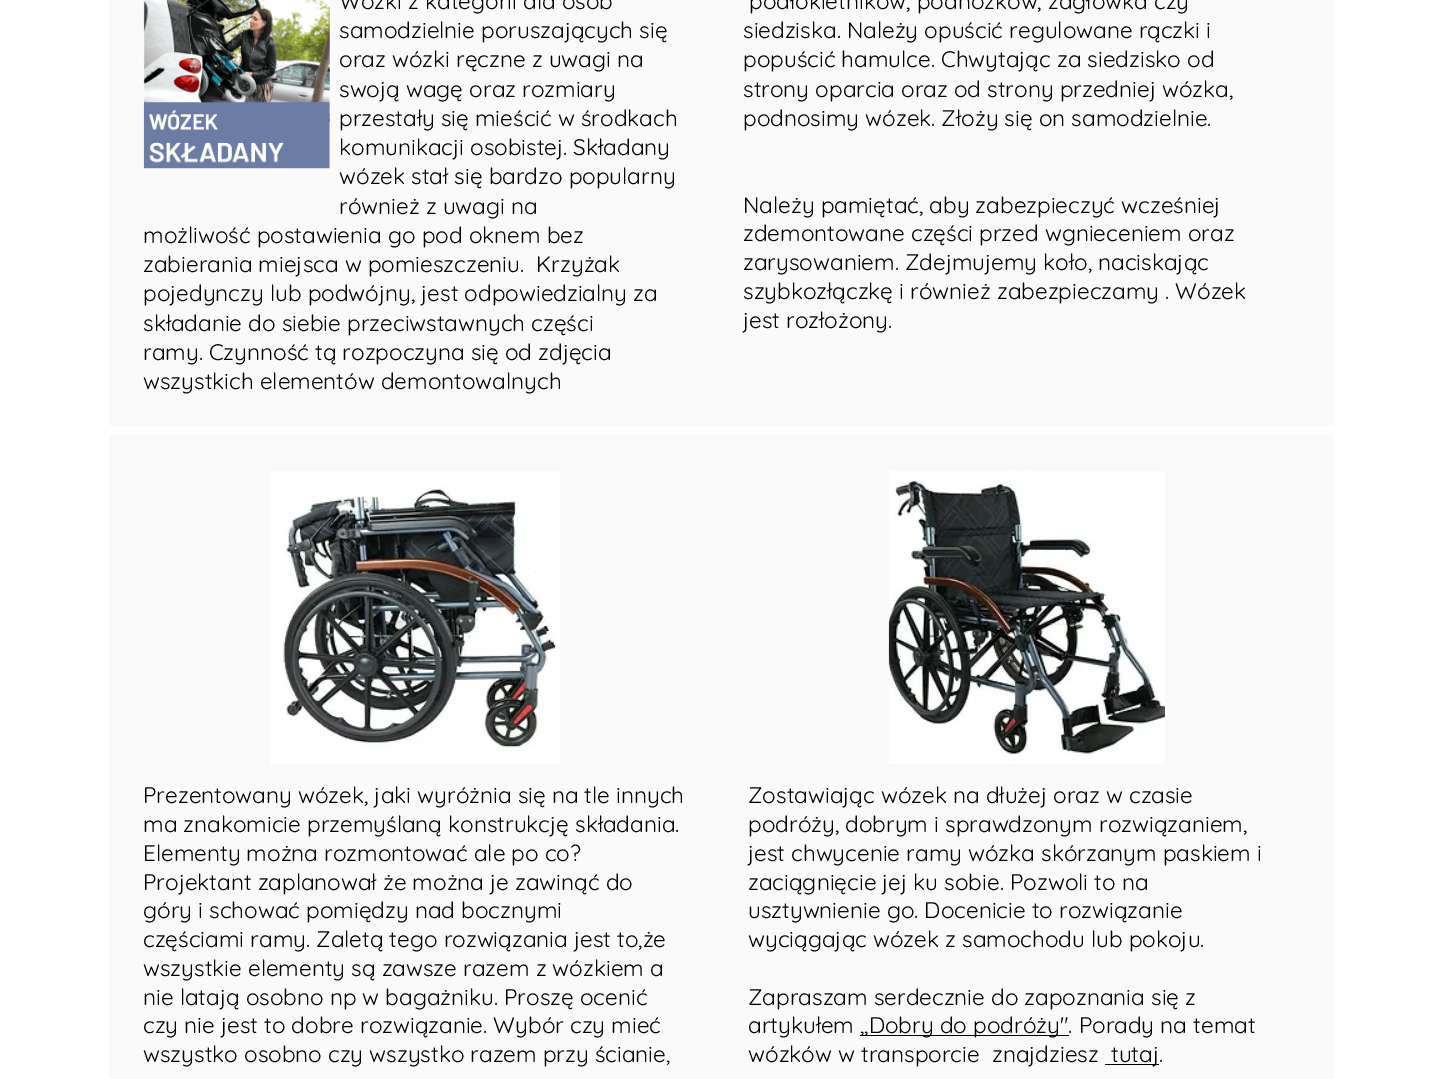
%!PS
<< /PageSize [1441 1079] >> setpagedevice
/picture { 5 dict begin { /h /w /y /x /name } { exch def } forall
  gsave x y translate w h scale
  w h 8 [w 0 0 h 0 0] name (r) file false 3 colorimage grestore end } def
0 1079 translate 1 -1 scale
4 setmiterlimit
1 setgray
0 0 1441 1079 rectfill
0.98 setgray
109 0 1225 426 rectfill
(img1.rgb) 143 0 187 169 picture
/Quicksand-Regular [22.5 0 0 -22.5 0 0] selectfont
0 setgray
339 9 moveto (Wózki z kategorii dla osób) show
339 38 moveto (samodzielnie poruszających się) show
339 67 moveto (oraz wózki ręczne z uwagi na) show
339 97 moveto (swoją wagę oraz rozmiary) show
339 126 moveto (przestały się mieścić w środkach) show
339 155 moveto (komunikacji osobistej. Składany) show
339 184 moveto (wózek stał się bardzo popularny) show
339 214 moveto (również z uwagi na) show
143 243 moveto (możliwość postawienia go pod oknem bez) show
143 272 moveto (zabierania miejsca w pomieszczeniu.  Krzyżak) show
143 301 moveto (pojedynczy lub podwójny, jest odpowiedzialny za) show
143 331 moveto (składanie do siebie przeciwstawnych części) show
143 360 moveto (ramy. Czynność tą rozpoczyna się od zdjęcia) show
143 389 moveto (wszystkich elementów demontowalnych) show
749 9 moveto (podłokietników, podnóżków, zagłówka czy) show
743 38 moveto (siedziska. Należy opuścić regulowane rączki i) show
743 67 moveto (popuścić hamulce. Chwytając za siedzisko od) show
743 97 moveto (strony oparcia oraz od strony przedniej wózka,) show
743 126 moveto (podnosimy wózek. Złoży się on samodzielnie.) show
743 213 moveto (Należy pamiętać, aby zabezpieczyć wcześniej) show
743 241 moveto (zdemontowane części przed wgnieceniem oraz) show
743 270 moveto (zarysowaniem. Zdejmujemy koło, naciskając) show
743 299 moveto (szybkozłączkę i również zabezpieczamy . Wózek) show
743 328 moveto (jest rozłożony.) show
0.98 setgray
109 435 1225 644 rectfill
(img2.rgb) 270 471 290 293 picture
0 setgray
143 803 moveto (Prezentowany wózek, jaki wyróżnia się na tle innych) show
143 832 moveto (ma znakomicie przemyślaną konstrukcję składania.) show
143 861 moveto (Elementy można rozmontować ale po co?) show
143 890 moveto (Projektant zaplanował że można je zawinąć do) show
143 918 moveto (góry i schować pomiędzy nad bocznymi) show
143 947 moveto (częściami ramy. Zaletą tego rozwiązania jest to,że) show
143 976 moveto (wszystkie elementy są zawsze razem z wózkiem a) show
143 1005 moveto (nie latają osobno np w bagażniku. Proszę ocenić) show
143 1033 moveto (czy nie jest to dobre rozwiązanie. Wybór czy mieć) show
143 1062 moveto (wszystko osobno czy wszystko razem przy ścianie,) show
(img3.rgb) 888 471 277 293 picture
748 803 moveto (Zostawiając wózek na dłużej oraz w czasie) show
748 832 moveto (podróży, dobrym i sprawdzonym rozwiązaniem,) show
748 861 moveto (jest chwycenie ramy wózka skórzanym paskiem i) show
748 890 moveto (zaciągnięcie jej ku sobie. Pozwoli to na) show
748 918 moveto (usztywnienie go. Docenicie to rozwiązanie) show
748 947 moveto (wyciągając wózek z samochodu lub pokoju.) show
748 1005 moveto (Zapraszam serdecznie do zapoznania się z) show
748 1033 moveto (artykułem) show
860 1035 209 1 rectfill
860 1033 moveto (,,Dobry do podróży". Porady na temat) show
748 1062 moveto (wózków w transporcie  znajdziesz) show
1105 1064 54 1 rectfill
1111 1062 moveto (tutaj.) show
showpage
